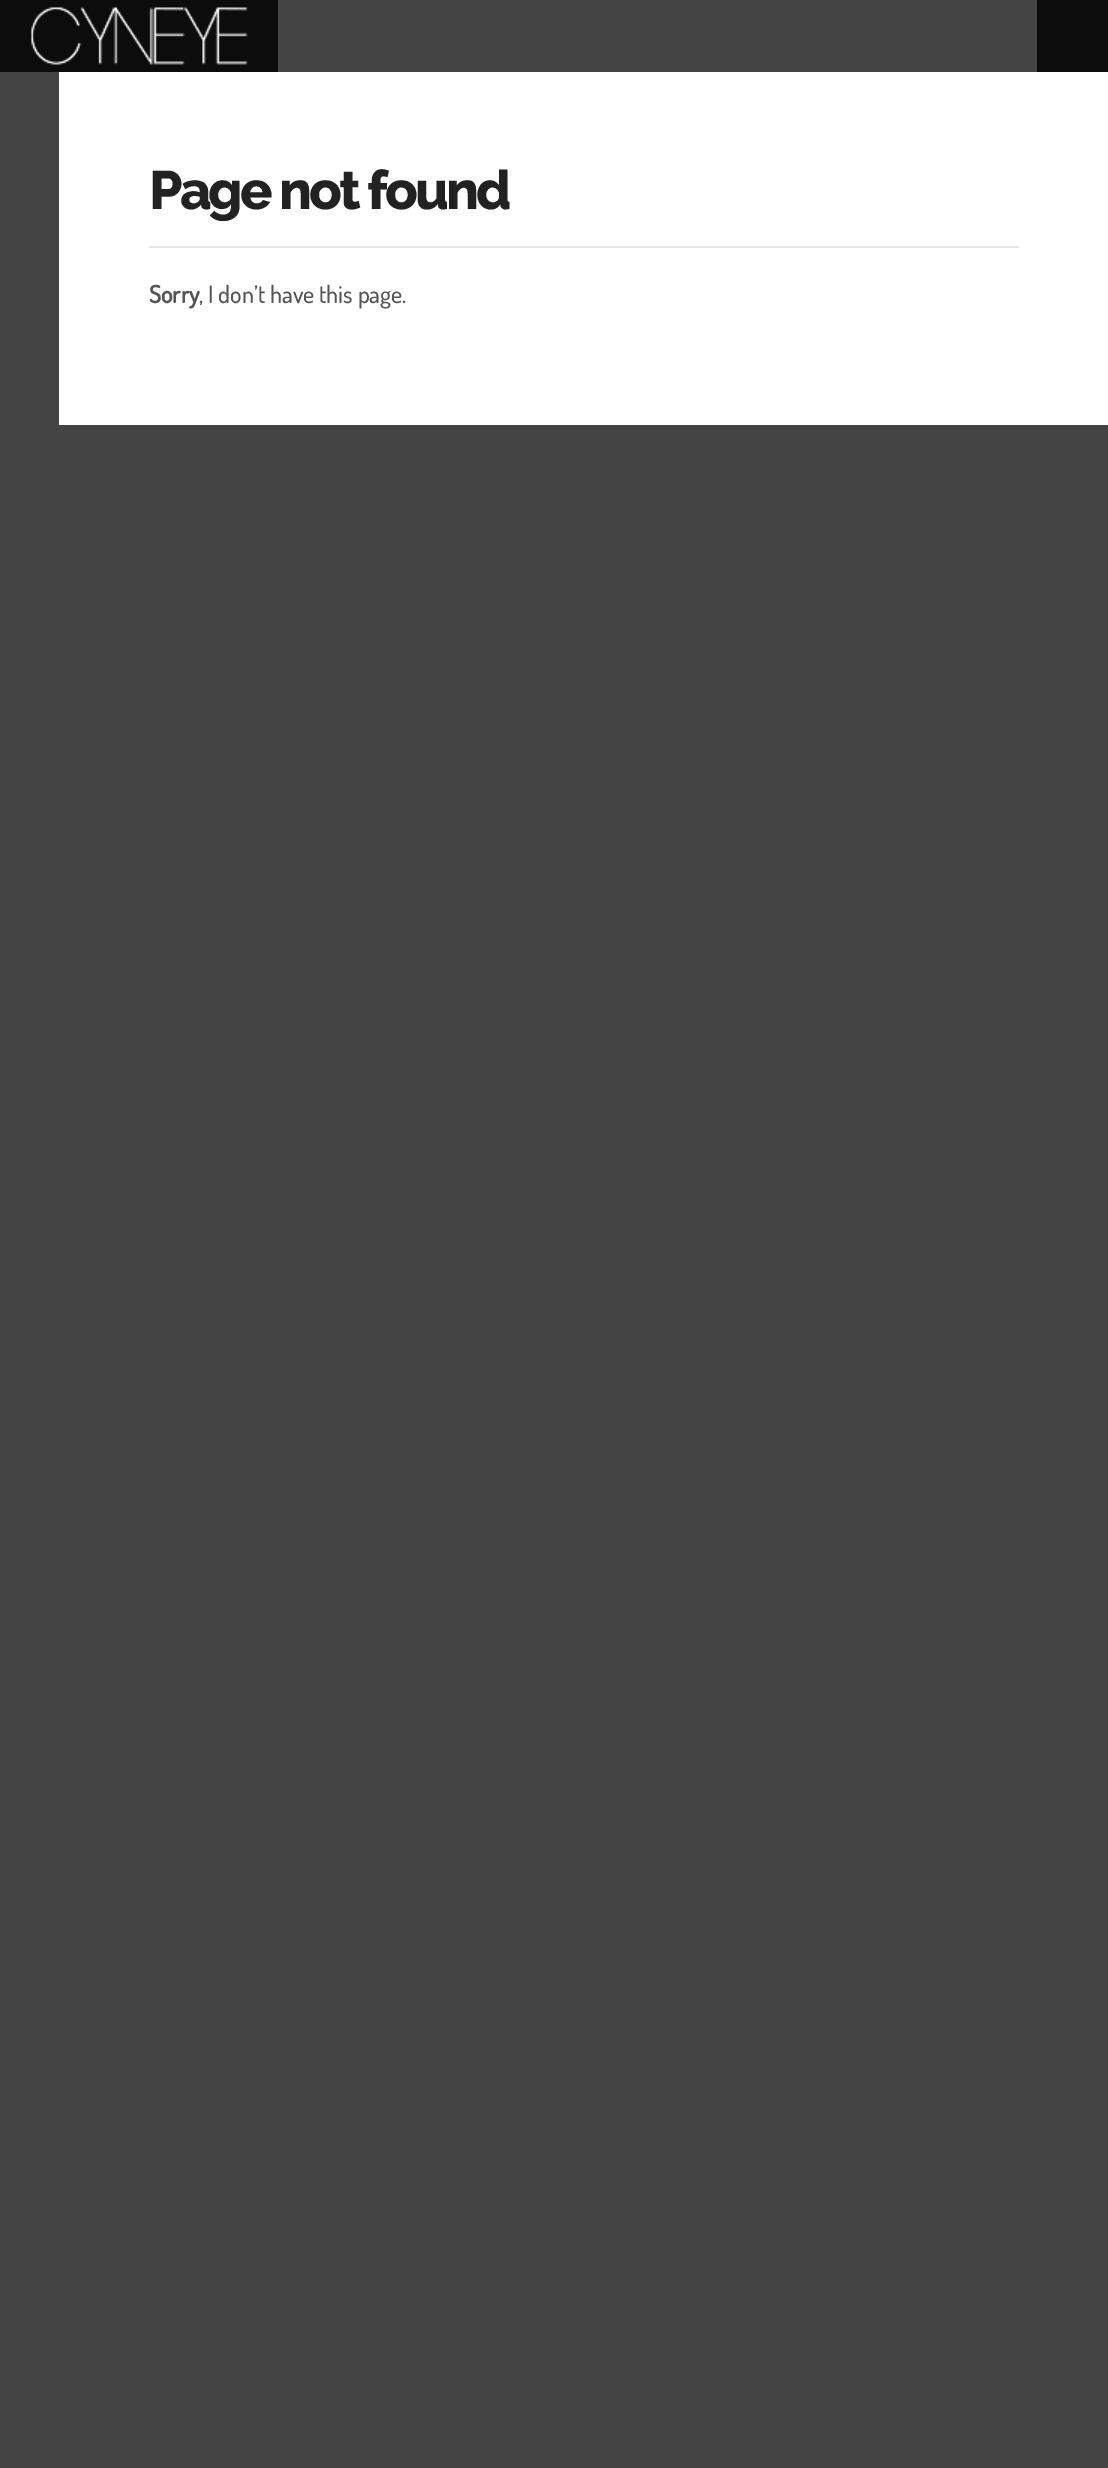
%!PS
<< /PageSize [1108 2468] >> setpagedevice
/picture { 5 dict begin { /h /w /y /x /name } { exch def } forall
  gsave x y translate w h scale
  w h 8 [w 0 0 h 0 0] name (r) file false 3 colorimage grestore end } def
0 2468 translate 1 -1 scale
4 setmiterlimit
0.267 setgray
0 0 1108 2468 rectfill
0.047 setgray
0 0 278 72 rectfill
(img1.rgb) 30 7 218 58 picture
1037 0 71 72 rectfill
1 setgray
59 72 1049 353 rectfill
0.898 setgray
149 246 870 2 rectfill
/Raleway-ExtraBold [54 0 0 -54 0 0] selectfont
0.133 setgray
149 209 moveto -3 0 (Page not found) ashow
/Dosis-Bold [24 0 0 -24 0 0] selectfont
0.333 setgray
149 303 moveto (Sorry) show
/Dosis-Medium [24 0 0 -24 0 0] selectfont
199 303 moveto (, I don’t have this page.) show
showpage
